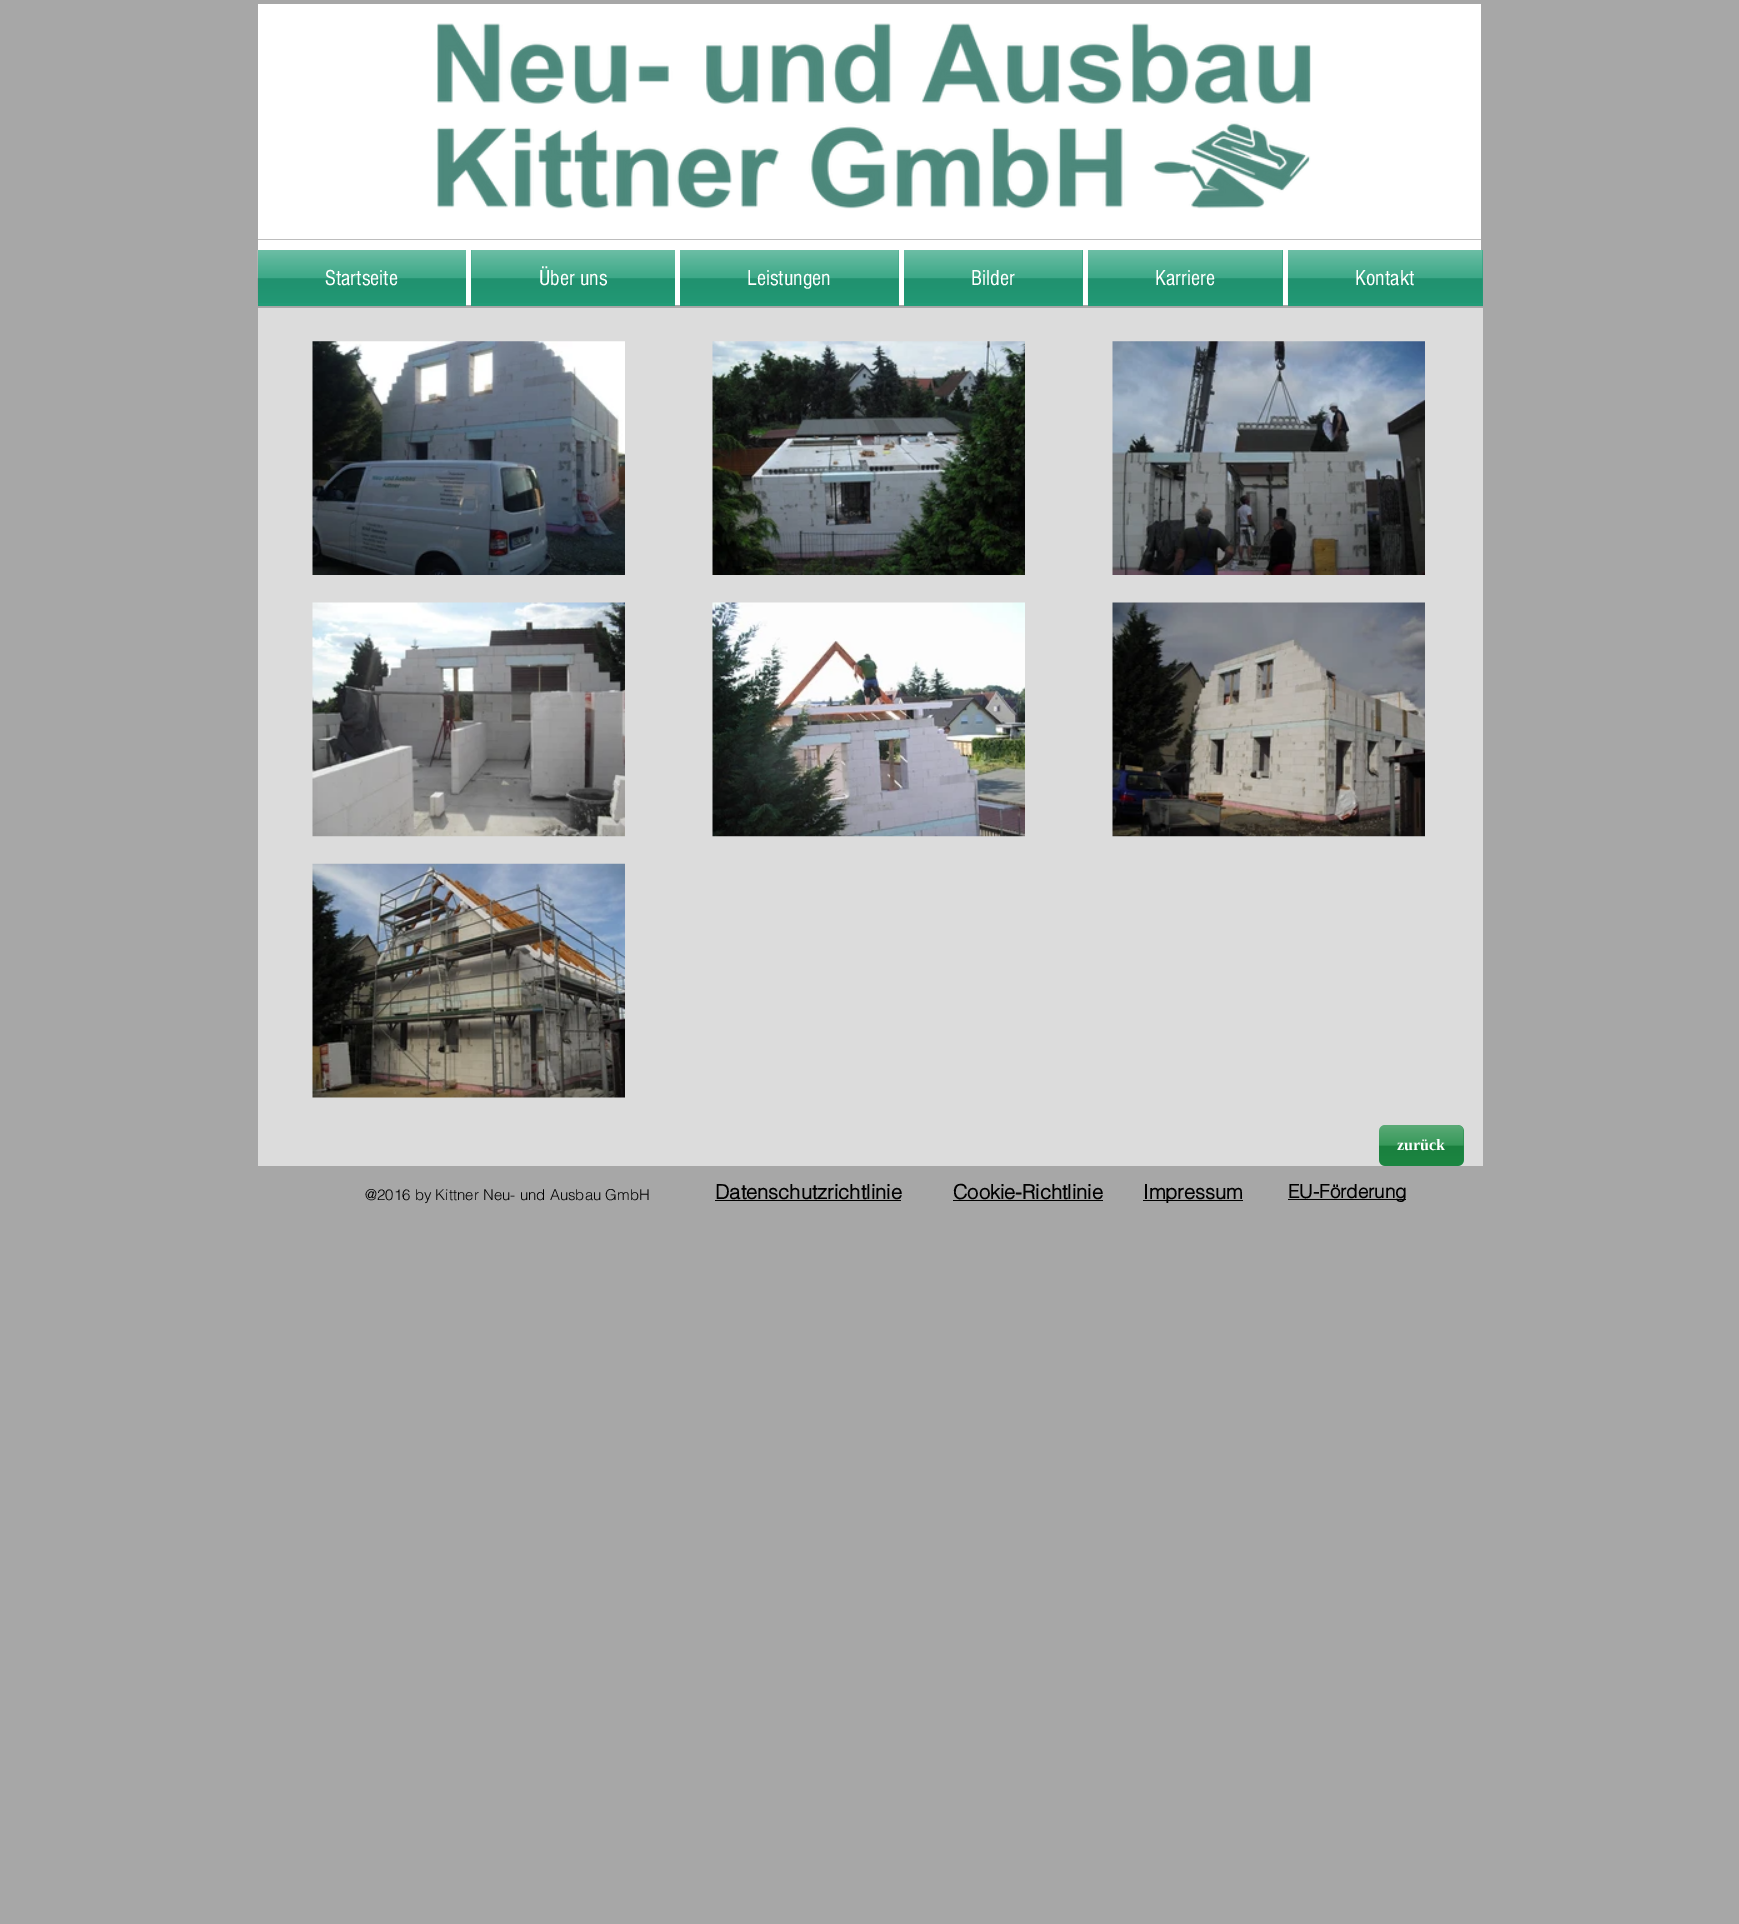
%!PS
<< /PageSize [1739 1924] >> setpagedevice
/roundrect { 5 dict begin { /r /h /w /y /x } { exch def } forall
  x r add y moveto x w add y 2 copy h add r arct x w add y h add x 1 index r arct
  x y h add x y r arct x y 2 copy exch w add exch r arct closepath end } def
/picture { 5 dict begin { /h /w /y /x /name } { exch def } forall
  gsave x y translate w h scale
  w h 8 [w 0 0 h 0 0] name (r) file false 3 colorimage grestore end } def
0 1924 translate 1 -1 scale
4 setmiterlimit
0.655 setgray
0 0 1739 1924 rectfill
1 setgray
258 4 1223 301 rectfill
(img1.rgb) 437 23 874 186 picture
0.741 setgray
258 239 1223 1 rectfill
0.133 0.612 0.467 setrgbcolor
258 250 208 56 rectfill
(img2.rgb) 257 250 209 53 picture
/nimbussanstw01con-Regular [22.5 0 0 -22.5 0 0] selectfont
1 setgray
325 285 moveto (Startseite) show
0.133 0.612 0.467 setrgbcolor
471 250 204 56 rectfill
(img3.rgb) 471 250 204 53 picture
1 setgray
539 285 moveto (Über uns) show
0.133 0.612 0.467 setrgbcolor
680 250 219 56 rectfill
(img4.rgb) 680 250 219 53 picture
1 setgray
747 285 moveto (Leistungen) show
0.133 0.612 0.467 setrgbcolor
904 250 179 56 rectfill
(img5.rgb) 904 250 179 53 picture
1 setgray
971 285 moveto (Bilder) show
0.133 0.612 0.467 setrgbcolor
1088 250 195 56 rectfill
(img6.rgb) 1087 250 196 53 picture
1 setgray
1155 285 moveto (Karriere) show
0.133 0.612 0.467 setrgbcolor
1288 250 195 56 rectfill
(img6.rgb) 1287 250 196 53 picture
1 setgray
1355 285 moveto (Kontakt) show
0.863 setgray
258 308 1225 858 rectfill
(img7.rgb) 312 341 313 234 picture
(img8.rgb) 712 341 313 234 picture
(img9.rgb) 1112 341 313 234 picture
(img10.rgb) 312 602 313 235 picture
(img11.rgb) 712 602 313 235 picture
(img12.rgb) 1112 602 313 235 picture
(img13.rgb) 312 863 313 235 picture
0.11 0.541 0.263 setrgbcolor
1379 1125 85 41 6 roundrect fill
(img14.rgb) 1379 1125 85 41 picture
/LiberationSerif-Bold [16 0 0 -16 0 0] selectfont
1 setgray
1397 1150 moveto (zurück) show
/helvetica-Light [15 0 0 -15 0 0] selectfont
0 setgray
365 1200 moveto (@2016 by Kittner Neu- und Ausbau GmbH) show
/helvetica-Bold [20 0 0 -20 0 0] selectfont
715 1199 moveto (Datenschutzrichtlinie) show
715 1200 186 1 rectfill
953 1199 moveto (Cookie-Richtlinie) show
953 1200 150 1 rectfill
1143 1200 100 1 rectfill
1143 1199 moveto (Impressum) show
1288 1199 118 1 rectfill
/helvetica-Bold [18.75 0 0 -18.75 0 0] selectfont
1288 1198 moveto (EU-Förderung) show
showpage
